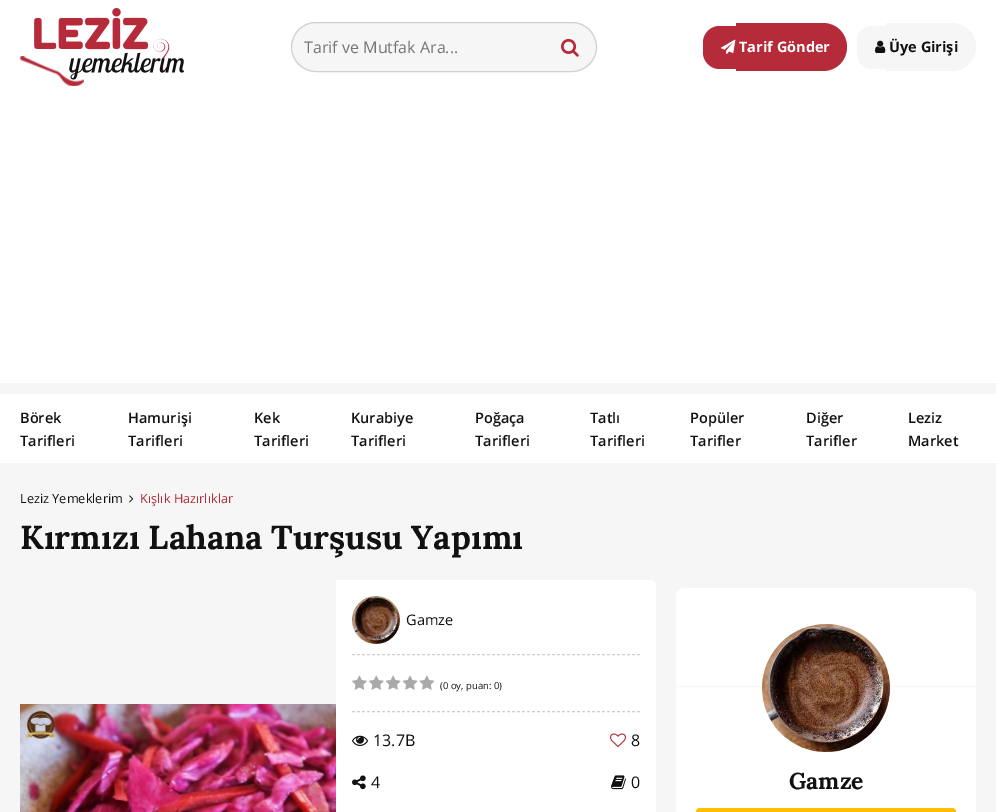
%!PS
<< /PageSize [996 812] >> setpagedevice
/roundrect { 5 dict begin { /r /h /w /y /x } { exch def } forall
  x r add y moveto x w add y 2 copy h add r arct x w add y h add x 1 index r arct
  x y h add x y r arct x y 2 copy exch w add exch r arct closepath end } def
/picture { 5 dict begin { /h /w /y /x /name } { exch def } forall
  gsave x y translate w h scale
  w h 8 [w 0 0 h 0 0] name (r) file false 3 colorimage grestore end } def
0 812 translate 1 -1 scale
4 setmiterlimit
0.965 setgray
0 0 996 812 rectfill
1 setgray
0 0 996 383 rectfill
(img1.rgb) 20 8 164 78 picture
0.965 setgray
291.5 22.5 305 49 24.5 roundrect gsave fill grestore
0.816 setgray
stroke
/OpenSans-Regular [16 0 0 -16 0 0] selectfont
0.459 setgray
304 53 moveto (Tarif ve Mutfak Ara...) show
(img2.rgb) 561 38 18 19 picture
0.71 0.169 0.227 setrgbcolor
newpath 719.5 26 moveto 736 26 lineto 736 69 lineto 719.5 69 lineto 710.5 69 703 61.5 703 52.5 curveto 703 42.5 lineto 703 33.5 710.5 26 719.5 26 curveto closepath fill
736 23 3 48 rectfill
newpath 739 23 moveto 823 23 lineto 836.5 23 847 33.5 847 47 curveto 847 60.5 836.5 71 823 71 curveto 739 71 lineto closepath fill
(img3.rgb) 721 39 15 15 picture
/OpenSans-Bold [14.5 0 0 -14.5 0 0] selectfont
1 setgray
739 52 moveto (Tarif Gönder) show
0.965 setgray
newpath 871.5 26 moveto 886 26 lineto 886 69 lineto 871.5 69 lineto 863.5 69 857 62.5 857 54.5 curveto 857 40.5 lineto 857 32.5 863.5 26 871.5 26 curveto closepath fill
886 23 3 48 rectfill
newpath 889 23 moveto 952 23 lineto 965.5 23 976 33.5 976 47 curveto 976 60.5 965.5 71 952 71 curveto 889 71 lineto closepath fill
(img4.rgb) 875 40 11 13 picture
0.067 setgray
889 52 moveto (Üye Girişi) show
1 setgray
0 394 996 69 rectfill
/OpenSans-SemiBold [14.5 0 0 -14.5 0 0] selectfont
0.067 setgray
20 423 moveto (Börek) show
20 446 moveto (Tarifleri) show
128 423 moveto (Hamurişi) show
128 446 moveto (Tarifleri) show
254 423 moveto (Kek) show
254 446 moveto (Tarifleri) show
351 423 moveto (Kurabiye) show
351 446 moveto (Tarifleri) show
475 423 moveto (Poğaça) show
475 446 moveto (Tarifleri) show
590 423 moveto (Tatlı) show
590 446 moveto (Tarifleri) show
690 423 moveto (Popüler) show
690 446 moveto (Tarifler) show
806 423 moveto (Diğer) show
806 446 moveto (Tarifler) show
908 423 moveto (Leziz) show
908 446 moveto (Market) show
/OpenSans-Regular [12.75 0 0 -12.75 0 0] selectfont
20 503 moveto (Leziz Yemeklerim) show
(img5.rgb) 129 495 5 8 picture
0.71 0.169 0.227 setrgbcolor
140 503 moveto (Kışlık Hazırlıklar) show
/Lora-Bold [33.2 0 0 -33.2 0 0] selectfont
0.067 setgray
20 549 moveto (Kırmızı Lahana Turşusu Yapımı) show
(img6.rgb) 20 704 316 108 picture
1 setgray
newpath 336 580 moveto 651 580 lineto 654 580 656 582 656 585 curveto 656 812 lineto 656 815 654 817 651 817 curveto 336 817 lineto closepath fill
0.808 setgray
[3 2] 0 setdash
newpath 352 654.5 moveto 640 654.5 lineto stroke
(img7.rgb) 352 596 48 48 picture
/OpenSans-Regular [14.5 0 0 -14.5 0 0] selectfont
0.067 setgray
406 625 moveto (Gamze) show
0.808 setgray
newpath 352 711.5 moveto 640 711.5 lineto stroke
(img8.rgb) 352 675 83 15 picture
/OpenSans-Regular [9.5 0 0 -9.5 0 0] selectfont
0.067 setgray
440 689 moveto (\(0 oy, puan: 0\)) show
(img9.rgb) 352 735 16 11 picture
/OpenSans-Regular [16 0 0 -16 0 0] selectfont
373 746 moveto (13.7B) show
(img10.rgb) 610 733 16 15 picture
631 746 moveto (8) show
(img11.rgb) 352 775 14 15 picture
371 788 moveto (4) show
(img12.rgb) 611 775 15 15 picture
631 788 moveto (0) show
1 setgray
676 588 300 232 8 roundrect fill
0.965 setgray
676 686 300 1 rectfill
(img13.rgb) 762 624 128 128 picture
/Lora-Bold [23 0 0 -23 0 0] selectfont
0.067 setgray
789 789 moveto (Gamze) show
1 0.749 0 setrgbcolor
696 808 260 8 4 roundrect fill
showpage
